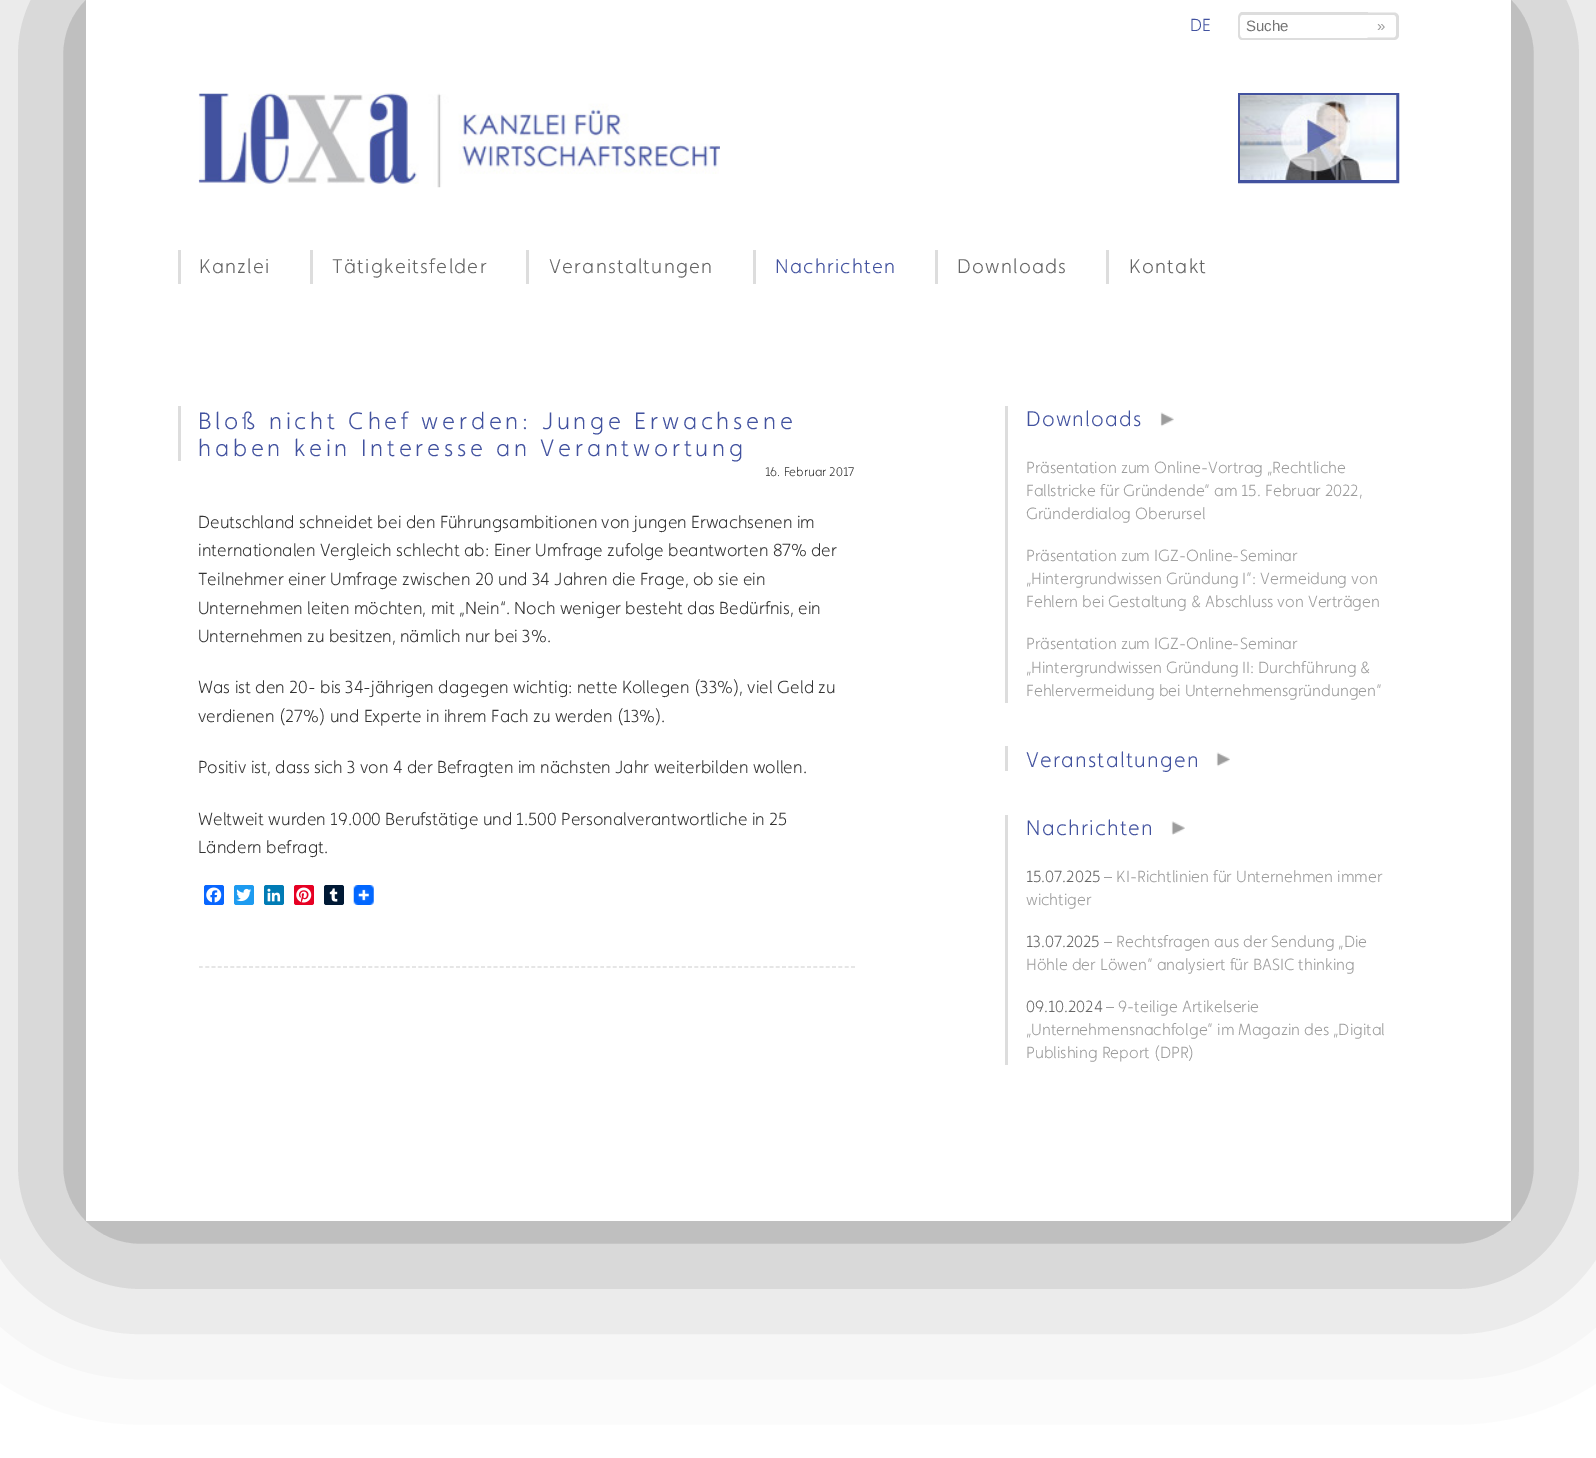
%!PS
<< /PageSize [1596 1458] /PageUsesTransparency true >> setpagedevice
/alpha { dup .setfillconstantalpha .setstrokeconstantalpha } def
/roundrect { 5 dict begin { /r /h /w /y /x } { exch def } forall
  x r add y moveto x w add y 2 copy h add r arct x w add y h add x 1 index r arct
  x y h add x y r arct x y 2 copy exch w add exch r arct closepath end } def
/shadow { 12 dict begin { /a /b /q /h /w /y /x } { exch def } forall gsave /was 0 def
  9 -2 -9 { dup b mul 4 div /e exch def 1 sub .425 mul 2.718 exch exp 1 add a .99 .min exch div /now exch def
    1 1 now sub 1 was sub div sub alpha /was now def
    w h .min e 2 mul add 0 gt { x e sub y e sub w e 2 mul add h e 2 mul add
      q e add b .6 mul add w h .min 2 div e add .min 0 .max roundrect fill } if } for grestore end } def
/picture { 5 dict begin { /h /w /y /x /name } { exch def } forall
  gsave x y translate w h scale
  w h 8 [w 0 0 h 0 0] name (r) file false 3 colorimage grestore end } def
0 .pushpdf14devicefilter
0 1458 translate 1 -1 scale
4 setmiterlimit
1 setgray
0 0 1596 1458 rectfill
0 setgray
86 0 1425 1221 0 90.5 0.5 shadow
1 setgray
86 0 1425 1221 rectfill
/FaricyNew-Light [17.5 0 0 -17.5 0 0] selectfont
0.259 0.322 0.624 setrgbcolor
1190 31 moveto (DE) show
0.867 setgray
newpath 1242 12 moveto 1368 12 lineto 1368 40 lineto 1242 40 lineto 1240 40 1238 38 1238 35 curveto 1238 18 lineto 1238 15 1240 12 1242 12 curveto closepath 1242 15 moveto 1368 15 lineto 1368 38 lineto 1242 38 lineto 1241 38 1240 36 1240 35 curveto 1240 18 lineto 1240 16 1241 15 1242 15 curveto closepath eofill
/LiberationSans-Regular [15 0 0 -15 0 0] selectfont
0.459 setgray
1246 31 moveto (Suche) show
0.867 setgray
newpath 1367.5 12.5 moveto 1394 12.5 lineto 1396.5 12.5 1399 14.5 1399 17.5 curveto 1399 35 lineto 1399 38 1396.5 40 1394 40 curveto 1367.5 40 lineto closepath 1367.5 15 moveto 1394 15 lineto 1395 15 1396 16 1396 17.5 curveto 1396 35 lineto 1396 36.5 1395 37.5 1394 37.5 curveto 1367.5 37.5 lineto closepath eofill
0.612 setgray
1377 31 moveto (») show
(img1.rgb) 198 93 522 95 picture
0.259 0.322 0.624 setrgbcolor
3 setlinewidth
1239.5 94.5 158 87 rectstroke
(img2.rgb) 1240 95 157 85 picture
0.867 setgray
178 250 3 34 rectfill
/FaricyNew-Light [20 0 0 -20 0 0] selectfont
0.4 setgray
199 273 moveto 1.25 0 (Kanzlei) ashow
0.867 setgray
310 250 3 34 rectfill
0.4 setgray
332 273 moveto 1.25 0 (Tätigkeitsfelder) ashow
0.867 setgray
526 250 3 34 rectfill
0.4 setgray
549 273 moveto 1.25 0 (Veranstaltungen) ashow
0.867 setgray
753 250 3 34 rectfill
0.259 0.322 0.624 setrgbcolor
775 273 moveto 1.25 0 (Nachrichten) ashow
0.867 setgray
935 250 3 34 rectfill
0.4 setgray
957 273 moveto 1.25 0 (Downloads) ashow
0.867 setgray
1106 250 3 34 rectfill
0.4 setgray
1129 273 moveto 1.25 0 (Kontakt) ashow
0.867 setgray
1.2 setlinewidth
[3.75 2.52] 0 setdash
newpath 199 967 moveto 855 967 lineto stroke
178 406 3 55 rectfill
/FaricyNew-Light [23.75 0 0 -23.75 0 0] selectfont
0.259 0.322 0.624 setrgbcolor
198 429 moveto 3.75 0 (Bloß nicht Chef werden: Junge Erwachsene) ashow
198 456 moveto 3.75 0 (haben kein Interesse an Verantwortung) ashow
/FaricyNew-Light [12.5 0 0 -12.5 0 0] selectfont
0.2 setgray
765 476 moveto (16. Februar 2017) show
/FaricyNew-Light [17.5 0 0 -17.5 0 0] selectfont
198 528 moveto (Deutschland schneidet bei den Führungsambitionen von jungen Erwachsenen im) show
198 556 moveto (internationalen Vergleich schlecht ab: Einer Umfrage zufolge beantworten 87% der) show
198 585 moveto (Teilnehmer einer Umfrage zwischen 20 und 34 Jahren die Frage, ob sie ein) show
198 614 moveto (Unternehmen leiten möchten, mit „Nein“. Noch weniger besteht das Bedürfnis, ein) show
198 642 moveto (Unternehmen zu besitzen, nämlich nur bei 3%.) show
198 693 moveto (Was ist den 20- bis 34-jährigen dagegen wichtig: nette Kollegen \(33%\), viel Geld zu) show
198 722 moveto (verdienen \(27%\) und Experte in ihrem Fach zu werden \(13%\).) show
198 773 moveto (Positiv ist, dass sich 3 von 4 der Befragten im nächsten Jahr weiterbilden wollen.) show
198 825 moveto (Weltweit wurden 19.000 Berufstätige und 1.500 Personalverantwortliche in 25) show
198 853 moveto (Ländern befragt.) show
0.031 0.4 1 setrgbcolor
204 885 20 20 2.5 roundrect fill
(img3.rgb) 206 887 16 16 picture
0.114 0.608 0.941 setrgbcolor
234 885 20 20 2.5 roundrect fill
(img4.rgb) 236 888 16 14 picture
0 0.482 0.71 setrgbcolor
264 885 20 20 2.5 roundrect fill
(img5.rgb) 267 888 14 14 picture
0.902 0 0.137 setrgbcolor
294 885 20 20 2.5 roundrect fill
(img6.rgb) 296 887 16 16 picture
0 0.098 0.208 setrgbcolor
324 885 20 20 2.5 roundrect fill
(img7.rgb) 329 888 9 14 picture
(img8.rgb) 353 885 21 20 picture
0.867 setgray
1005 406 3 297 rectfill
/FaricyNew-Light [21.25 0 0 -21.25 0 0] selectfont
0.259 0.322 0.624 setrgbcolor
1026 426 moveto 1.25 0 (Downloads) ashow
(img9.rgb) 1160 412 14 15 picture
/FaricyNew-Light [16.25 0 0 -16.25 0 0] selectfont
0.612 setgray
1026 473 moveto (Präsentation zum Online-Vortrag „Rechtliche) show
1026 496 moveto (Fallstricke für Gründende“ am 15. Februar 2022,) show
1026 519 moveto (Gründerdialog Oberursel) show
1026 561 moveto (Präsentation zum IGZ-Online-Seminar) show
1026 584 moveto („Hintergrundwissen Gründung I“: Vermeidung von) show
1026 607 moveto (Fehlern bei Gestaltung & Abschluss von Verträgen) show
1026 649 moveto (Präsentation zum IGZ-Online-Seminar) show
1026 673 moveto („Hintergrundwissen Gründung II: Durchführung &) show
1026 696 moveto (Fehlervermeidung bei Unternehmensgründungen“) show
0.867 setgray
1005 746 3 25 rectfill
/FaricyNew-Light [21.25 0 0 -21.25 0 0] selectfont
0.259 0.322 0.624 setrgbcolor
1026 767 moveto 1.25 0 (Veranstaltungen) ashow
(img10.rgb) 1216 752 14 15 picture
0.867 setgray
1005 815 3 250 rectfill
0.259 0.322 0.624 setrgbcolor
1026 835 moveto 1.25 0 (Nachrichten) ashow
(img11.rgb) 1171 821 14 14 picture
/FaricyNew-Light [16.25 0 0 -16.25 0 0] selectfont
0.4 setgray
1026 882 moveto (15.07.2025) show
0.612 setgray
1104 882 moveto (– KI-Richtlinien für Unternehmen immer) show
1026 905 moveto (wichtiger) show
0.4 setgray
1026 947 moveto (13.07.2025) show
0.612 setgray
1104 947 moveto (– Rechtsfragen aus der Sendung „Die) show
1026 970 moveto (Höhle der Löwen“ analysiert für BASIC thinking) show
0.4 setgray
1026 1012 moveto (09.10.2024) show
0.612 setgray
1106 1012 moveto (– 9-teilige Artikelserie) show
1026 1035 moveto („Unternehmensnachfolge“ im Magazin des „Digital) show
1026 1058 moveto (Publishing Report \(DPR\)) show
.poppdf14devicefilter showpage
